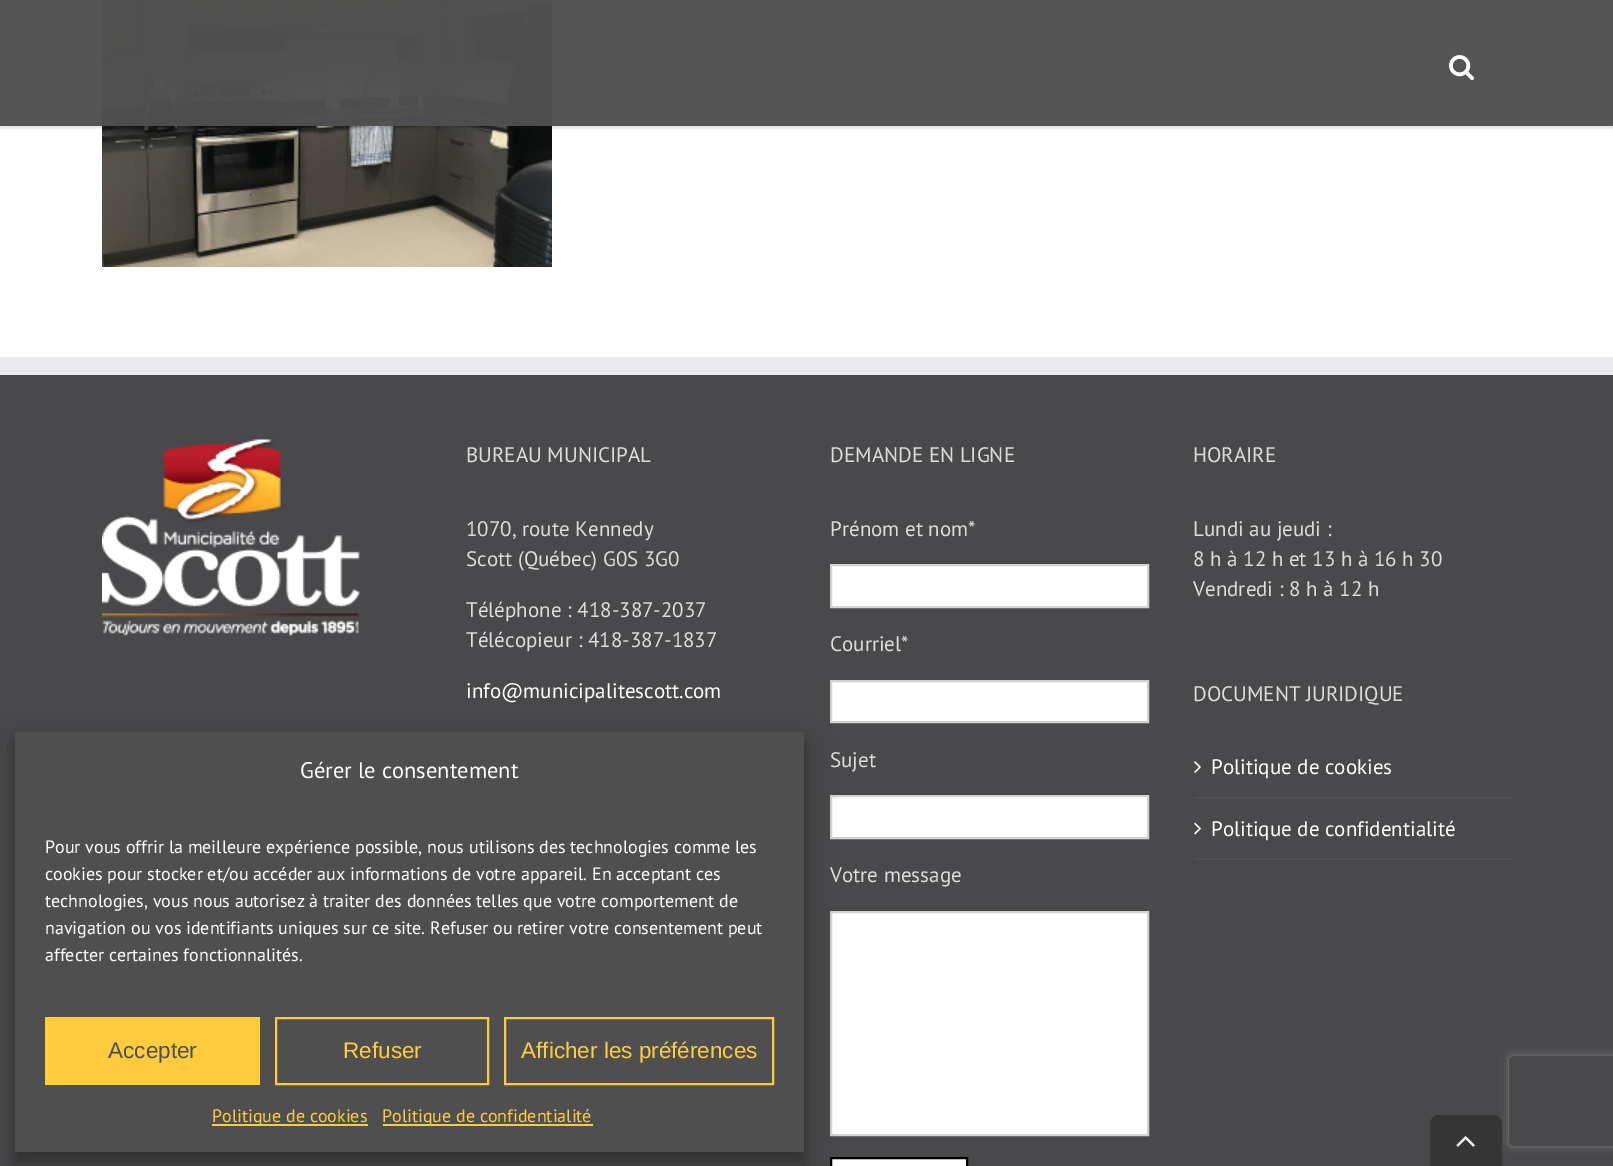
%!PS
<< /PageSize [1613 1166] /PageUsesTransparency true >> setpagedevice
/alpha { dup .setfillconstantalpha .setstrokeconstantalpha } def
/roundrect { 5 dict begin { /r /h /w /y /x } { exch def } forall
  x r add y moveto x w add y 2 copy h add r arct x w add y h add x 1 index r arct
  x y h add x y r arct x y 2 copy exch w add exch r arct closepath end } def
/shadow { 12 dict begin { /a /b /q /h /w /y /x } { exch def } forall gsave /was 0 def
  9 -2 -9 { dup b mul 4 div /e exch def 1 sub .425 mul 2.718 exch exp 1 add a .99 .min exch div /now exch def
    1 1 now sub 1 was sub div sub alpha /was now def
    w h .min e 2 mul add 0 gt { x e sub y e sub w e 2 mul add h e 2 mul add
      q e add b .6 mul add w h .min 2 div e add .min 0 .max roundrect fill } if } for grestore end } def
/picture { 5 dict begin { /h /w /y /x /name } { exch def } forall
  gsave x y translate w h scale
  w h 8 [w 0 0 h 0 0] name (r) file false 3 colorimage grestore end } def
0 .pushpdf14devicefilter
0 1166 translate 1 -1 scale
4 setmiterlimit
1 setgray
0 0 1613 1166 rectfill
(img2.rgb) 102 0 450 267 picture
gsave
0 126 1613 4 rectclip
0 setgray
0 2 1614 126 0 2 0.12 shadow
grestore
0.97 alpha
0.31 setgray
0 0 1613 126 rectfill
1 alpha
(img1.rgb) 1449 55 26 26 picture
0.286 0.286 0.298 setrgbcolor
0 375 1613 791 rectfill
0.914 0.918 0.933 setrgbcolor
0 357 1613 18 rectfill
(img3.rgb) 102 439 258 197 picture
/PTSans-Regular [21 0 0 -21 0 0] selectfont
0.867 setgray
466 462 moveto (BUREAU MUNICIPAL) show
466 536 moveto (1070, route Kennedy) show
466 566 moveto (Scott \(Québec\) G0S 3G0) show
466 617 moveto (Téléphone : 418-387-2037) show
466 647 moveto (Télécopieur : 418-387-1837) show
1 setgray
466 698 moveto (info@municipalitescott.com) show
0.867 setgray
830 462 moveto (DEMANDE EN LIGNE) show
830 536 moveto (Prénom et nom*) show
1 setgray
newpath 831 565 moveto 1148 565 lineto 1148 607 lineto 831 607 lineto closepath gsave fill grestore
0.824 setgray
2 setlinewidth
stroke
0.867 setgray
830 651 moveto (Courriel*) show
1 setgray
newpath 831 681 moveto 1148 681 lineto 1148 722 lineto 831 722 lineto closepath gsave fill grestore
0.824 setgray
stroke
0.867 setgray
830 767 moveto (Sujet) show
1 setgray
newpath 831 796 moveto 1148 796 lineto 1148 838 lineto 831 838 lineto closepath gsave fill grestore
0.824 setgray
stroke
0.867 setgray
830 882 moveto (Votre message) show
1 setgray
newpath 831 912 moveto 1148 912 lineto 1148 1135 lineto 831 1135 lineto closepath gsave fill grestore
0.824 setgray
stroke
1 setgray
newpath 831 1158 moveto 967 1158 lineto 967 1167 lineto 831 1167 lineto closepath gsave fill grestore
0 setgray
stroke
0.867 setgray
1193 462 moveto (HORAIRE) show
1193 536 moveto (Lundi au jeudi :) show
1193 566 moveto (8 h à 12 h et 13 h à 16 h 30) show
1193 596 moveto (Vendredi : 8 h à 12 h) show
1193 701 moveto (DOCUMENT JURIDIQUE) show
0.314 0.318 0.322 setrgbcolor
1194 797 318 2 rectfill
(img4.rgb) 1194 761 7 12 picture
1 setgray
1211 774 moveto (Politique de cookies) show
0.314 0.318 0.322 setrgbcolor
1194 858 318 2 rectfill
(img5.rgb) 1194 822 7 13 picture
1 setgray
1211 836 moveto (Politique de confidentialité) show
0 setgray
15 741 789 420 0 4.5 0.23 shadow
15 747 789 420 0 15 0.19 shadow
0.31 setgray
15 732 789 420 rectfill
/PTSans-Regular [22.5 0 0 -22.5 0 0] selectfont
1 setgray
300 778 moveto (Gérer le consentement) show
/PTSans-Regular [18 0 0 -18 0 0] selectfont
45 853 moveto (Pour vous offrir la meilleure expérience possible, nous utilisons des technologies comme les) show
45 880 moveto (cookies pour stocker et/ou accéder aux informations de votre appareil. En acceptant ces) show
45 907 moveto (technologies, vous nous autorisez à traiter des données telles que votre comportement de) show
45 934 moveto (navigation ou vos identifiants uniques sur ce site. Refuser ou retirer votre consentement peut) show
45 961 moveto (affecter certaines fonctionnalités.) show
1 0.8 0.251 setrgbcolor
45 1017 215 68 rectfill
/LiberationSans-Regular [22.5 0 0 -22.5 0 0] selectfont
0.31 setgray
108 1058 moveto (Accepter) show
1 0.8 0.251 setrgbcolor
276 1018 212 66 rectstroke
343 1058 moveto (Refuser) show
505 1018 268 66 rectstroke
521 1058 moveto (Afficher les préférences) show
212 1124 156 2 rectfill
/PTSans-Regular [18 0 0 -18 0 0] selectfont
212 1122 moveto (Politique de cookies) show
383 1124 210 2 rectfill
382 1122 moveto (Politique de confidentialité) show
gsave
newpath 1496 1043 moveto 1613 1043 lineto 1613 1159 lineto 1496 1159 lineto closepath 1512 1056 moveto 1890 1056 lineto 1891.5 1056 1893 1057.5 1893 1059 curveto 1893 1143 lineto 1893 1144.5 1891.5 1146 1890 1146 curveto 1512 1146 lineto 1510.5 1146 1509 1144.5 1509 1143 curveto 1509 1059 lineto 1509 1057.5 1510.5 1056 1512 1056 curveto closepath eoclip newpath
0.502 setgray
1509 1056 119 90 3 4 1 shadow
grestore
0.208 0.208 0.212 setrgbcolor
newpath 1439 1115 moveto 1493 1115 lineto 1498 1115 1502 1119 1502 1124 curveto 1502 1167 lineto 1430 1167 lineto 1430 1124 lineto 1430 1119 1434 1115 1439 1115 curveto closepath fill
(img6.rgb) 1456 1136 19 11 picture
.poppdf14devicefilter showpage
